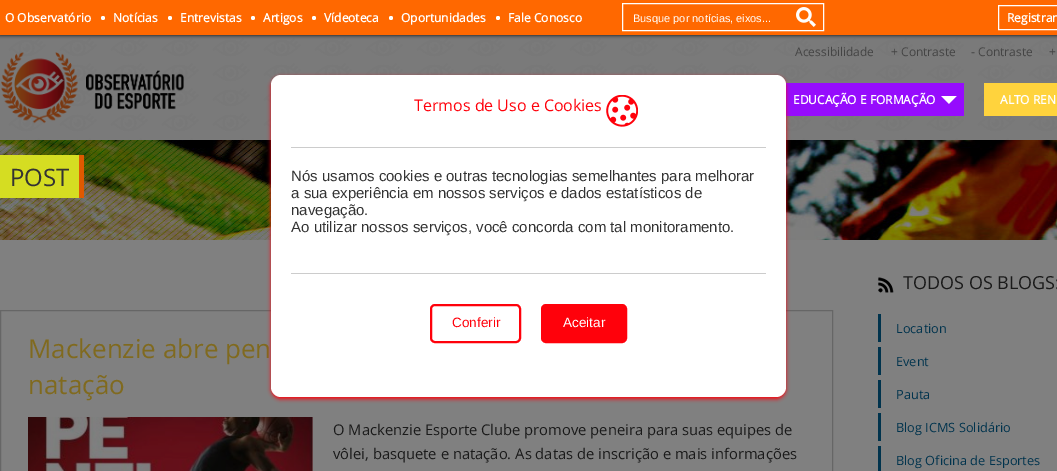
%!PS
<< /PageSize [1057 471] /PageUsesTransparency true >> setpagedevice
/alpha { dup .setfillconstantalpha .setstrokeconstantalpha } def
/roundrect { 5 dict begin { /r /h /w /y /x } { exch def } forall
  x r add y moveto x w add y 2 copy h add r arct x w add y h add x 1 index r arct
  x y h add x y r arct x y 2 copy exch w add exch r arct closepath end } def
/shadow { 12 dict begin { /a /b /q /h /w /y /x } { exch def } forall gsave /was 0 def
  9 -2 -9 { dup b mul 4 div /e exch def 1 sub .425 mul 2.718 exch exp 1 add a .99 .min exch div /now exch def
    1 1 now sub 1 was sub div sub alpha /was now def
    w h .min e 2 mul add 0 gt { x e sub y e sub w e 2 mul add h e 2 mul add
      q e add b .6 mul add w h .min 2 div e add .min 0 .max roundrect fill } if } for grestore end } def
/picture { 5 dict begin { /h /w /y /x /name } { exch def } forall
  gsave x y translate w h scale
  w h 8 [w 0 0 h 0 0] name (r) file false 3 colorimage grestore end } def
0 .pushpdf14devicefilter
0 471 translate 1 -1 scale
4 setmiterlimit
0.502 setgray
0 0 1057 471 rectfill
(img2.rgb) 0 35 1057 105 picture
0 setgray
0 0 1057 35 0 2 1 shadow
1 0.408 0 setrgbcolor
0 0 1057 35 rectfill
/OpenSans-Bold [12 0 0 -12 0 0] selectfont
1 setgray
5 22 moveto (O Observatório) show
newpath 103 18 2 0 360 arc closepath fill
113 22 moveto (Notícias) show
newpath 170 18 2 0 360 arc closepath fill
180 22 moveto (Entrevistas) show
newpath 253 18 2 0 360 arc closepath fill
263 22 moveto (Artigos) show
newpath 314 18 2 0 360 arc closepath fill
324 22 moveto (Vídeoteca) show
newpath 391 18 2 0 360 arc closepath fill
401 22 moveto (Oportunidades) show
newpath 498 18 2 0 360 arc closepath fill
508 22 moveto (Fale Conosco) show
622.5 3.5 201 27 rectstroke
gsave
623 12 200 12 rectclip
/LiberationSans-Regular [11 0 0 -11 0 0] selectfont
633 22 moveto (Busque por notícias, eixos...) show
grestore
(img1.rgb) 796 7 20 20 picture
998.5 5.5 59 24 rectstroke
1007 22 moveto (Registrar) show
(img3.rgb) 1 52 183 72 picture
/OpenSans-Regular [12 0 0 -12 0 0] selectfont
0.267 setgray
795 56 moveto (Acessibilidade) show
891 56 moveto (+ Contraste) show
971 56 moveto (- Contraste) show
1049 56 moveto (+) show
0.588 0.047 0.992 setrgbcolor
785 83 179 33 rectfill
(img4.rgb) 941 96 16 8 picture
/OpenSans-Bold [12 0 0 -12 0 0] selectfont
1 setgray
793 104 moveto (EDUCAÇÃO E FORMAÇÃO) show
1 0.827 0.239 setrgbcolor
984 83 73 33 rectfill
1 setgray
1000 104 moveto (ALTO REN) show
(img5.rgb) 0 140 1057 100 picture
0.835 0.867 0.133 setrgbcolor
0 155 79 43 rectfill
0.875 0.349 0 setrgbcolor
79 155 5 43 rectfill
/OpenSans-Regular [24 0 0 -24 0 0] selectfont
0.2 setgray
10 186 moveto (POST) show
0.4 setgray
0.5 310.5 832 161 rectstroke
/OpenSans-Regular [26 0 0 -26 0 0] selectfont
0.502 0.416 0.122 setrgbcolor
28 358 moveto (Mackenzie abre pen) show
28 394 moveto (natação) show
(img6.rgb) 28 417 285 54 picture
/OpenSans-Regular [14.75 0 0 -14.75 0 0] selectfont
0.102 setgray
333 435 moveto (O Mackenzie Esporte Clube promove peneira para suas equipes de) show
333 459 moveto (vôlei, basquete e natação. As datas de inscrição e mais informações) show
(img7.rgb) 878 277 16 16 picture
/OpenSans-Regular [18 0 0 -18 0 0] selectfont
903 289 moveto (TODOS OS BLOGS:) show
0 0.2 0.302 setrgbcolor
878 314 3 28 rectfill
/OpenSans-Regular [12.75 0 0 -12.75 0 0] selectfont
896 333 moveto (Location) show
878 347 3 28 rectfill
896 366 moveto (Event) show
878 380 3 28 rectfill
896 399 moveto (Pauta) show
878 413 3 28 rectfill
896 432 moveto (Blog ICMS Solidário) show
878 446 3 25 rectfill
896 465 moveto (Blog Oficina de Esportes) show
1 0.004 0.043 setrgbcolor
271 77 515 322 10 2 1 shadow
1 setgray
271 75 515 322 10 roundrect fill
/OpenSans-Regular [16 0 0 -16 0 0] selectfont
1 0.004 0.043 setrgbcolor
414 111 moveto (Termos de Uso e Cookies) show
(img8.rgb) 606 95 32 32 picture
0.8 setgray
291 147 475 1 rectfill
/LiberationSans-Regular [15 0 0 -15 0 0] selectfont
0.2 setgray
291 181 moveto (Nós usamos cookies e outras tecnologias semelhantes para melhorar) show
291 198 moveto (a sua experiência em nossos serviços e dados estatísticos de) show
291 215 moveto (navegação.) show
291 232 moveto (Ao utilizar nossos serviços, você concorda com tal monitoramento.) show
0.8 setgray
291 273 475 1 rectfill
1 0.004 0.043 setrgbcolor
2 setlinewidth
431 305 89 37 4 roundrect stroke
/LiberationSans-Regular [13.5 0 0 -13.5 0 0] selectfont
452 327 moveto (Conferir) show
542 305 84 37 4 roundrect gsave fill grestore
stroke
1 setgray
563 327 moveto (Aceitar) show
.poppdf14devicefilter showpage
